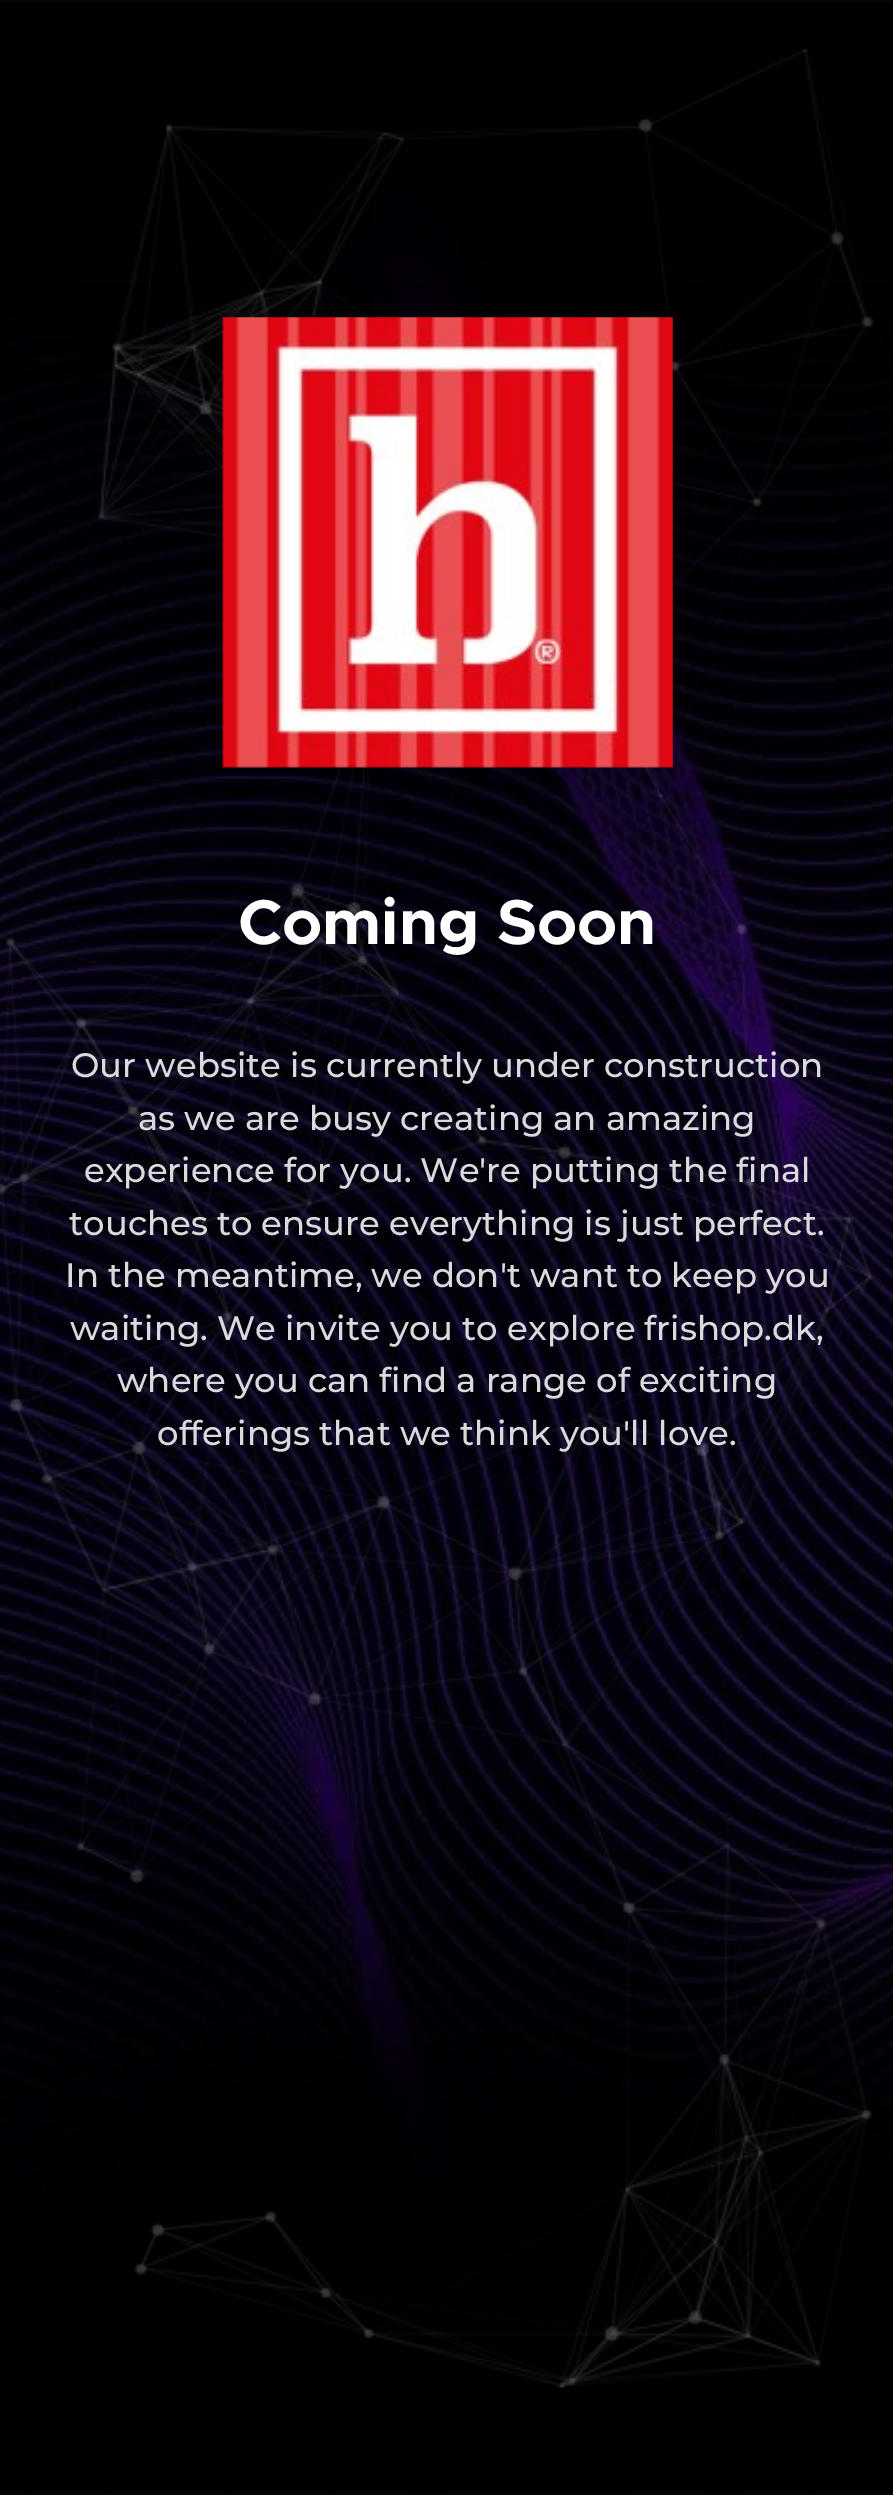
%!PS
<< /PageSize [893 2495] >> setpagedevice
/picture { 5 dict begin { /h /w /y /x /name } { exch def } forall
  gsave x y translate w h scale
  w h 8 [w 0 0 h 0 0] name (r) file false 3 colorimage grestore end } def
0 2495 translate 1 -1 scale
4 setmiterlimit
1 setgray
0 0 893 2495 rectfill
(img1.rgb) 0 0 893 2495 picture
(img2.rgb) 0 47 874 2342 picture
(img3.rgb) 222 317 451 451 picture
/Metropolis-Bold [63.5 0 0 -63.5 0 0] selectfont
238 944 moveto (Coming Soon) show
/Montserrat-Thin [33.9 0 0 -33.9 0 0] selectfont
0.855 0.851 0.863 setrgbcolor
71 1077 moveto (Our website is currently under construction) show
138 1130 moveto (as we are busy creating an amazing) show
84 1182 moveto (experience for you. We're putting the final) show
69 1235 moveto (touches to ensure everything is just perfect.) show
65 1287 moveto (In the meantime, we don't want to keep you) show
70 1340 moveto (waiting. We invite you to explore frishop.dk,) show
117 1392 moveto (where you can find a range of exciting) show
157 1445 moveto (offerings that we think you'll love.) show
showpage
